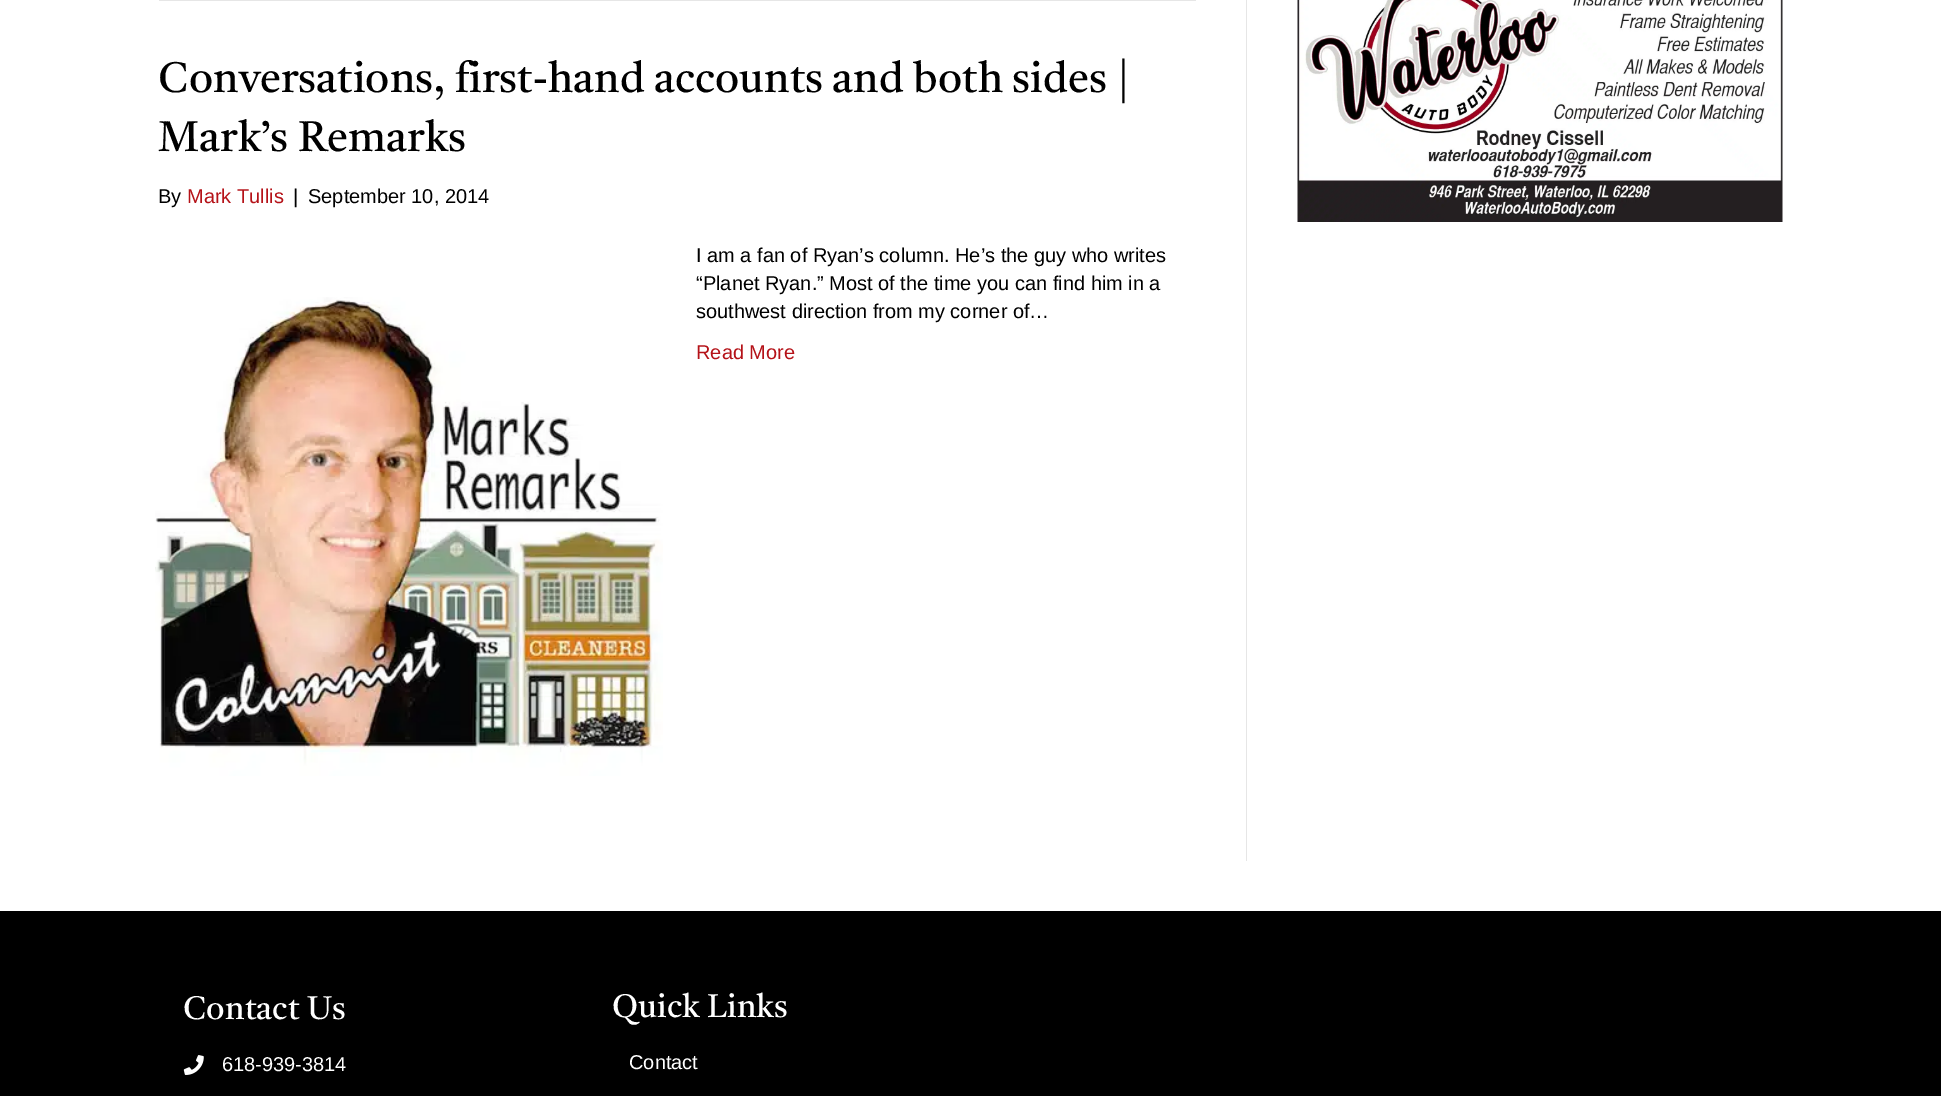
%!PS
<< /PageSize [1941 1096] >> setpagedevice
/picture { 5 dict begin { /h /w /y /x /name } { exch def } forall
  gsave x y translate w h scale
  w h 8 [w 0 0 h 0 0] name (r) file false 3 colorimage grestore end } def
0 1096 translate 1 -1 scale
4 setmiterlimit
1 setgray
0 0 1941 1096 rectfill
0.902 setgray
1246 0 1 861 rectfill
159 0 1037 1 rectfill
/Castoro-Regular [42.5 0 0 -42.5 0 0] selectfont
0 setgray
158 92 moveto (Conversations, first-hand accounts and both sides |) show
158 151 moveto (Mark’s Remarks) show
/LiberationSans-Regular [20 0 0 -20 0 0] selectfont
158 203 moveto (By) show
0.71 0.071 0.094 setrgbcolor
187 203 moveto (Mark Tullis) show
0 setgray
293 203 moveto (|) show
308 203 moveto (September 10, 2014) show
(img1.rgb) 155 297 508 479 picture
696 262 moveto (I am a fan of Ryan’s column. He’s the guy who writes) show
696 290 moveto (“Planet Ryan.” Most of the time you can find him in a) show
696 318 moveto (southwest direction from my corner of…) show
0.71 0.071 0.094 setrgbcolor
696 359 moveto (Read More) show
(img2.rgb) 1297 0 486 222 picture
0 setgray
0 911 1941 185 rectfill
/Castoro-Regular [32.5 0 0 -32.5 0 0] selectfont
1 setgray
183 1019 moveto (Contact Us) show
(img3.rgb) 183 1055 21 20 picture
/LiberationSans-Regular [20 0 0 -20 0 0] selectfont
222 1071 moveto (618-939-3814) show
/Castoro-Regular [32.5 0 0 -32.5 0 0] selectfont
612 1017 moveto (Quick Links) show
/LiberationSans-Regular [20 0 0 -20 0 0] selectfont
629 1069 moveto (Contact) show
showpage
